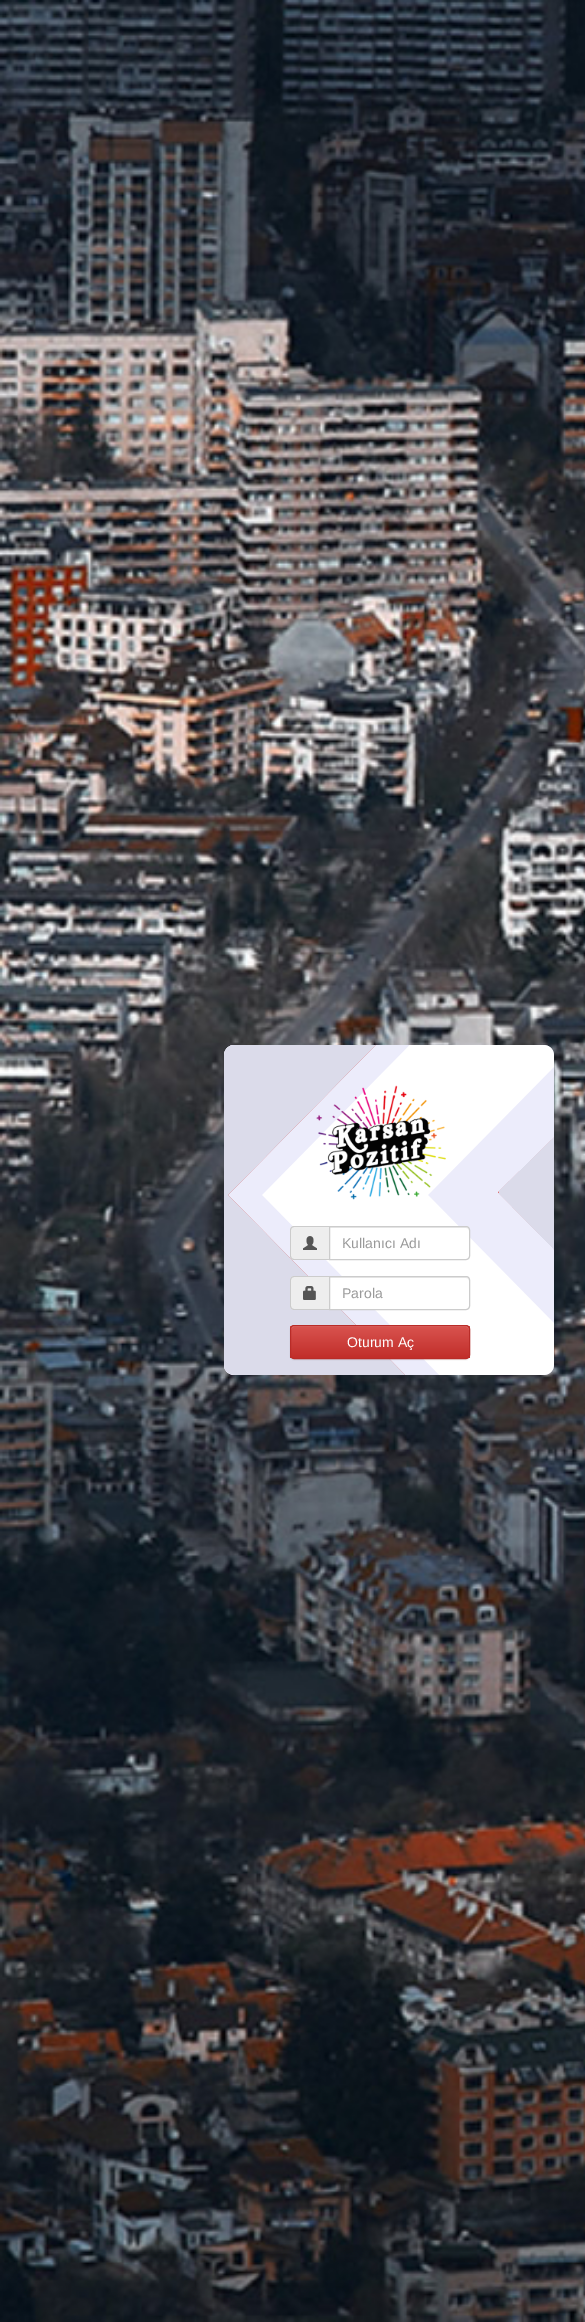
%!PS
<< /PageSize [585 2322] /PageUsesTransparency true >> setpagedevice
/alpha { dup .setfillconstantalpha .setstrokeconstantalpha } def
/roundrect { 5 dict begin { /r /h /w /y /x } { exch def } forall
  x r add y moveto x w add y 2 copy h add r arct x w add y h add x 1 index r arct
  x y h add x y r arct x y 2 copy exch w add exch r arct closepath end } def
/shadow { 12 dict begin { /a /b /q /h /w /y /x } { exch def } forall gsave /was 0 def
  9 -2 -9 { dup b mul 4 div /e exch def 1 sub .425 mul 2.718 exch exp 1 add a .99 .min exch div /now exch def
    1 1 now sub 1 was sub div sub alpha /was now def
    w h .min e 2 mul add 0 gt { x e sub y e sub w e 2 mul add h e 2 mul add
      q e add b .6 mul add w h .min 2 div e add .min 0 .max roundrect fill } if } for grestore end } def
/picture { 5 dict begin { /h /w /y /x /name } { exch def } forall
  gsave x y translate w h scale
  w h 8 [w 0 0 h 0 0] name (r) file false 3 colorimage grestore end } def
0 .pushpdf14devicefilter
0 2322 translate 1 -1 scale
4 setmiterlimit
1 setgray
0 0 585 2322 rectfill
(img1.rgb) 0 0 585 2322 picture
0.925 0.925 0.984 setrgbcolor
224 1045 330 330 10 roundrect fill
(img2.rgb) 224 1045 330 330 picture
(img3.rgb) 224 1045 215 330 picture
(img4.rgb) 224 1045 181 330 picture
(img5.rgb) 498 1137 56 113 picture
(img6.rgb) 316 1085 130 115 picture
0.933 setgray
newpath 294 1226 moveto 329 1226 lineto 329 1260 lineto 294 1260 lineto 292 1260 290 1258 290 1256 curveto 290 1230 lineto 290 1228 292 1226 294 1226 curveto closepath fill
0.8 setgray
newpath 294 1226 moveto 329 1226 lineto 329 1260 lineto 294 1260 lineto 292 1260 290 1258 290 1256 curveto 290 1230 lineto 290 1228 292 1226 294 1226 curveto closepath 294 1227 moveto 329 1227 lineto 329 1259 lineto 294 1259 lineto 292.5 1259 291 1257.5 291 1256 curveto 291 1230 lineto 291 1228.5 292.5 1227 294 1227 curveto closepath eofill
(img7.rgb) 303 1236 14 14 picture
1 setgray
newpath 329 1226 moveto 466 1226 lineto 468 1226 470 1228 470 1230 curveto 470 1256 lineto 470 1258 468 1260 466 1260 curveto 329 1260 lineto closepath fill
0.925 setgray
newpath 330 1228 moveto 466 1228 lineto 468 1228 469 1229 469 1231 curveto 469 1229 468 1227 466 1227 curveto 330 1227 lineto closepath fill
0.8 setgray
newpath 329.5 1226.5 moveto 466 1226.5 lineto 468 1226.5 469.5 1228 469.5 1230 curveto 469.5 1256 lineto 469.5 1258 468 1259.5 466 1259.5 curveto 329.5 1259.5 lineto closepath stroke
/LiberationSans-Regular [14 0 0 -14 0 0] selectfont
0.6 setgray
342 1248 moveto (Kullanıcı Adı) show
0.933 setgray
newpath 294 1276 moveto 329 1276 lineto 329 1310 lineto 294 1310 lineto 292 1310 290 1308 290 1306 curveto 290 1280 lineto 290 1278 292 1276 294 1276 curveto closepath fill
0.8 setgray
newpath 294 1276 moveto 329 1276 lineto 329 1310 lineto 294 1310 lineto 292 1310 290 1308 290 1306 curveto 290 1280 lineto 290 1278 292 1276 294 1276 curveto closepath 294 1277 moveto 329 1277 lineto 329 1309 lineto 294 1309 lineto 292.5 1309 291 1307.5 291 1306 curveto 291 1280 lineto 291 1278.5 292.5 1277 294 1277 curveto closepath eofill
(img8.rgb) 303 1286 13 14 picture
1 setgray
newpath 329 1276 moveto 466 1276 lineto 468 1276 470 1278 470 1280 curveto 470 1306 lineto 470 1308 468 1310 466 1310 curveto 329 1310 lineto closepath fill
0.925 setgray
newpath 330 1278 moveto 466 1278 lineto 468 1278 469 1279 469 1281 curveto 469 1279 468 1277 466 1277 curveto 330 1277 lineto closepath fill
0.8 setgray
newpath 329.5 1276.5 moveto 466 1276.5 lineto 468 1276.5 469.5 1278 469.5 1280 curveto 469.5 1306 lineto 469.5 1308 468 1309.5 466 1309.5 curveto 329.5 1309.5 lineto closepath stroke
0.6 setgray
342 1298 moveto (Parola) show
0 setgray
290 1326 180 34 4 0.5 0.07 shadow
gsave
290 1325 180 34 4 roundrect clip newpath
gsave newpath 290 1326 moveto 470 1326 lineto 470 1358 lineto 290 1358 lineto closepath clip newpath
<< /ShadingType 2 /ColorSpace /DeviceRGB /Coords [380 1326 380 1358] /Extend [true true] /Function << /FunctionType 2 /Domain [0 1] /C0 [0.851 0.325 0.31] /C1 [0.757 0.18 0.165] /N 1 >> >> shfill grestore
grestore
0.875 0.424 0.412 setrgbcolor
newpath 294 1327 moveto 466 1327 lineto 468 1327 469 1328 469 1330 curveto 469 1329 lineto 469 1327 468 1326 466 1326 curveto 294 1326 lineto 292 1326 291 1327 291 1329 curveto 291 1330 lineto 291 1328 292 1327 294 1327 curveto closepath fill
0.725 0.173 0.157 setrgbcolor
290.5 1325.5 179 33 3.5 roundrect stroke
1 setgray
347 1347 moveto (Oturum Aç) show
.poppdf14devicefilter showpage
